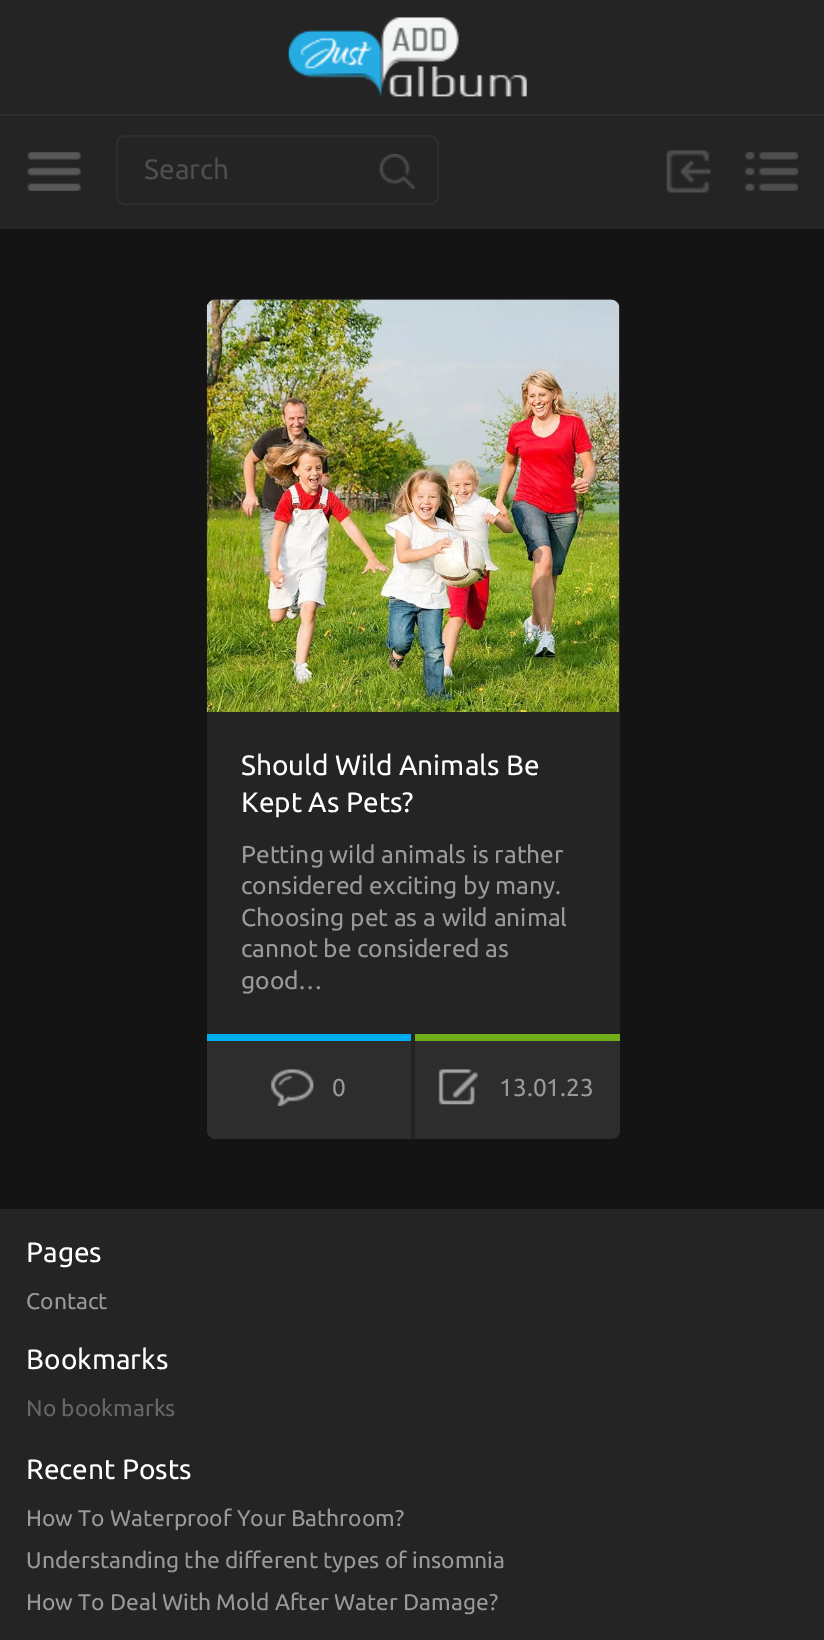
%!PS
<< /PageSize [824 1640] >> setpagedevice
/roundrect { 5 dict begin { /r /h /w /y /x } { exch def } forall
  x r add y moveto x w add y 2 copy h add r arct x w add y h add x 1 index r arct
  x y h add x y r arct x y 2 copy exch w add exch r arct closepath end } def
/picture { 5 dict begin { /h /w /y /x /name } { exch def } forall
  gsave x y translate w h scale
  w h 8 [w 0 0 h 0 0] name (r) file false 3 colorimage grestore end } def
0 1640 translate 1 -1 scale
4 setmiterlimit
0.078 setgray
0 0 824 1640 rectfill
0.141 setgray
0 116 824 113 rectfill
0 0 824 114 rectfill
0.176 setgray
0 114 824 2 rectfill
(img1.rgb) 288 17 239 81 picture
(img2.rgb) 27 152 54 39 picture
2 setlinewidth
117 136 321 68 8 roundrect stroke
/Ubuntu-Regular [28 0 0 -28 0 0] selectfont
0.306 setgray
144 179 moveto (Search) show
(img3.rgb) 379 154 36 35 picture
(img4.rgb) 666 150 45 43 picture
(img5.rgb) 745 152 53 39 picture
0.141 setgray
207 299 413 840 9 roundrect fill
(img6.rgb) 206 299 414 413 picture
1 setgray
241 775 moveto (Should Wild Animals Be) show
241 812 moveto (Kept As Pets?) show
/Ubuntu-Regular [24.5 0 0 -24.5 0 0] selectfont
0.6 setgray
241 863 moveto (Petting wild animals is rather) show
241 894 moveto (considered exciting by many.) show
241 926 moveto (Choosing pet as a wild animal) show
241 957 moveto (cannot be considered as) show
241 989 moveto (good…) show
0.176 setgray
newpath 207 1034 moveto 411 1034 lineto 411 1139 lineto 216 1139 lineto 211 1139 207 1135 207 1130 curveto closepath fill
0 0.682 0.937 setrgbcolor
207 1034 204 7 rectfill
(img7.rgb) 271 1069 43 37 picture
0.6 setgray
332 1096 moveto (0) show
0.176 setgray
newpath 415 1034 moveto 620 1034 lineto 620 1130 lineto 620 1135 616 1139 611 1139 curveto 415 1139 lineto closepath fill
0.435 0.678 0.106 setrgbcolor
415 1034 205 7 rectfill
(img8.rgb) 438 1069 40 36 picture
0.6 setgray
499 1096 moveto (13.01.23) show
0.141 setgray
0 1209 824 431 rectfill
/Ubuntu-Regular [28 0 0 -28 0 0] selectfont
1 setgray
26 1262 moveto (Pages) show
/Ubuntu-Regular [22.75 0 0 -22.75 0 0] selectfont
0.6 setgray
26 1309 moveto (Contact) show
/Ubuntu-Regular [28 0 0 -28 0 0] selectfont
1 setgray
26 1369 moveto (Bookmarks) show
/Ubuntu-Regular [22.75 0 0 -22.75 0 0] selectfont
0.4 setgray
26 1416 moveto (No bookmarks) show
/Ubuntu-Regular [28 0 0 -28 0 0] selectfont
1 setgray
26 1479 moveto (Recent Posts) show
/Ubuntu-Regular [22.75 0 0 -22.75 0 0] selectfont
0.6 setgray
26 1526 moveto (How To Waterproof Your Bathroom?) show
26 1568 moveto (Understanding the different types of insomnia) show
26 1610 moveto (How To Deal With Mold After Water Damage?) show
showpage
